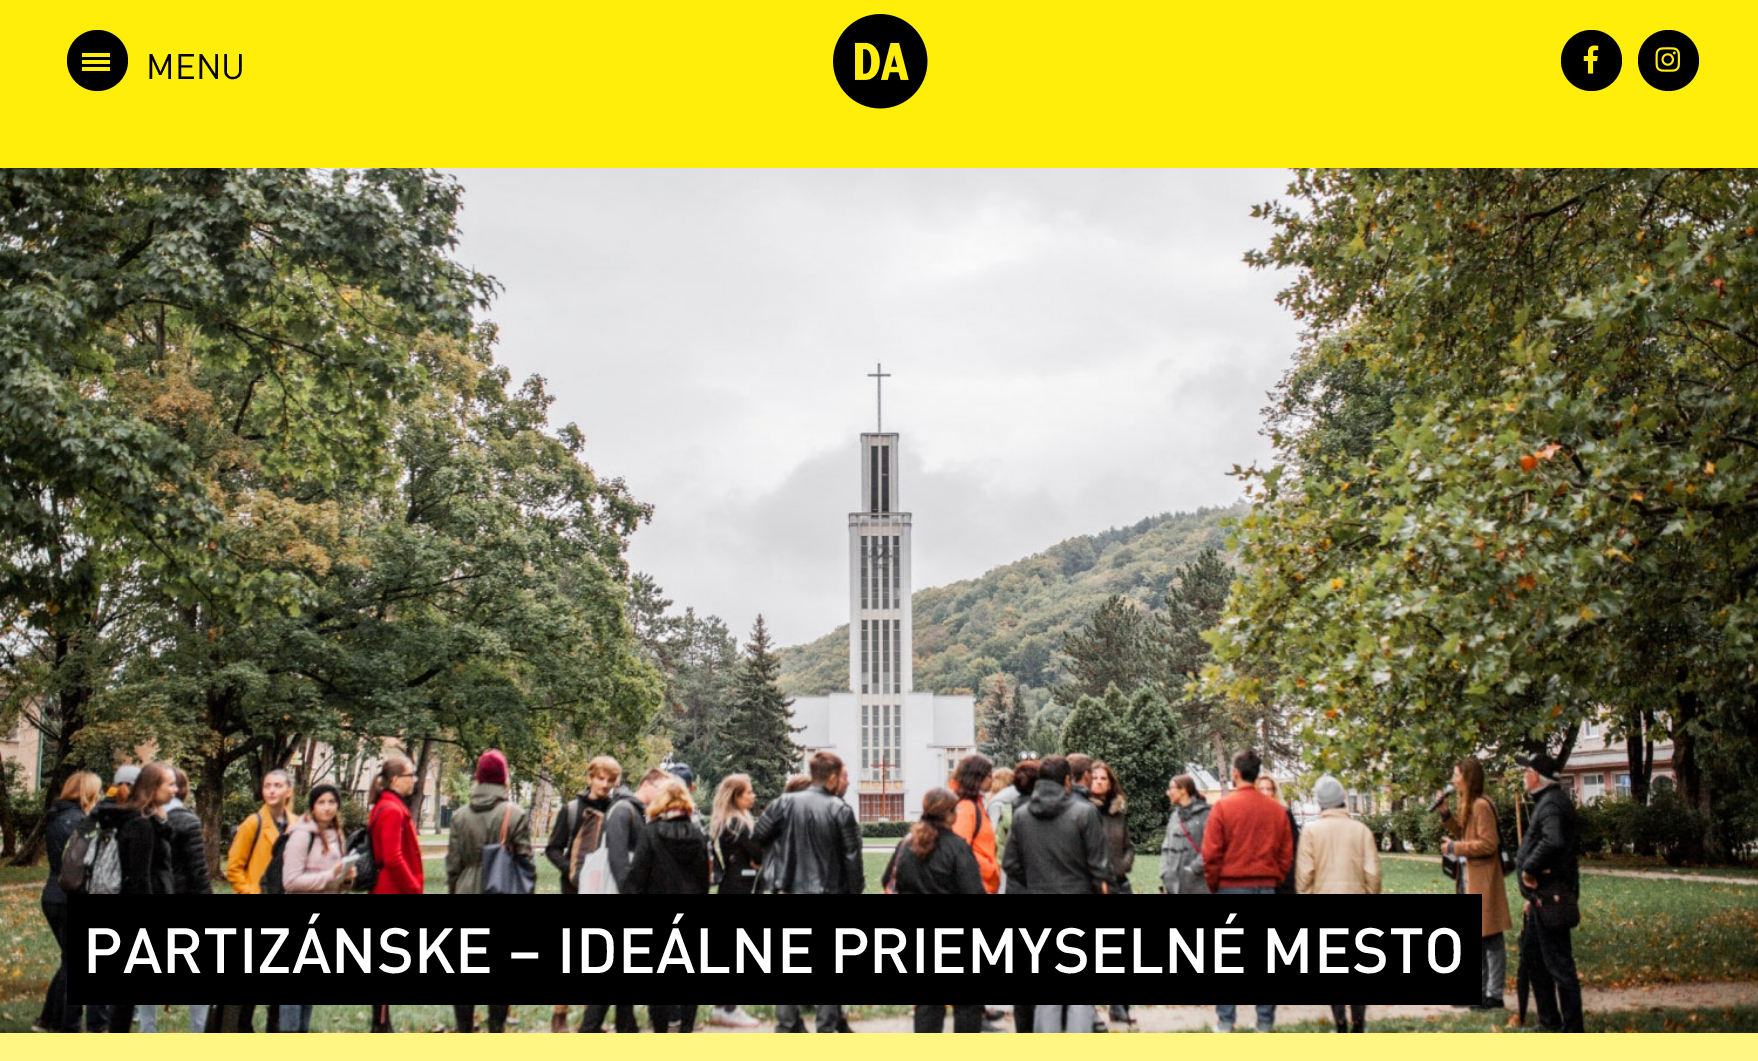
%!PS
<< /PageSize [1758 1061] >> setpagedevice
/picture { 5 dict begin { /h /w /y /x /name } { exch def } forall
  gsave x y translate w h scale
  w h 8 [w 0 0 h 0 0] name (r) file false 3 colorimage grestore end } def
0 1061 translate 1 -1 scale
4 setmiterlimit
1 setgray
0 0 1758 1061 rectfill
1 0.929 0.039 setrgbcolor
0 0 1758 168 rectfill
0 setgray
newpath 97.5 60.5 30.5 0 360 arc closepath fill
1 0.929 0.039 setrgbcolor
82 53 28 4 rectfill
82 60 28 4 rectfill
82 67 28 4 rectfill
/DIN-Regular [35 0 0 -35 0 0] selectfont
0 setgray
146 79 moveto (MENU) show
(img1.rgb) 833 14 95 95 picture
newpath 1591.5 60.5 30.5 0 360 arc closepath fill
(img2.rgb) 1583 45 16 29 picture
newpath 1668.5 60.5 30.5 0 360 arc closepath fill
(img3.rgb) 1655 47 25 25 picture
gsave newpath 0 1033 moveto 1758 1033 lineto 1758 1061 lineto 0 1061 lineto closepath clip newpath
<< /ShadingType 2 /ColorSpace /DeviceRGB /Coords [879 157 879 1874] /Extend [true true] /Function << /FunctionType 2 /Domain [0 1] /C0 [1 0.929 0] /C1 [1 1 1] /N 1 >> >> shfill grestore
(img4.rgb) 0 168 1758 865 picture
67 894 1415 111 rectfill
/DIN-Medium [63 0 0 -63 0 0] selectfont
1 setgray
83 973 moveto (PARTIZÁNSKE – IDEÁLNE PRIEMYSELNÉ MESTO) show
showpage
